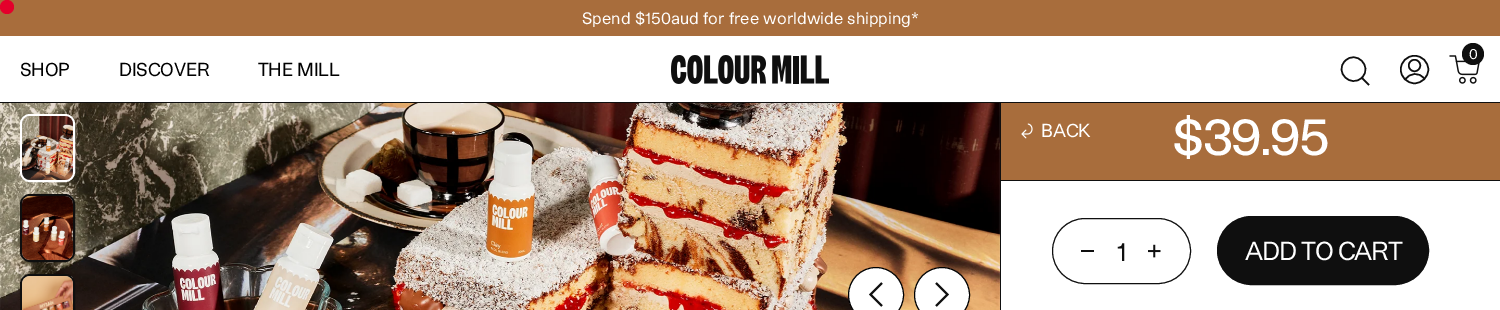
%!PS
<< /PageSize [1500 310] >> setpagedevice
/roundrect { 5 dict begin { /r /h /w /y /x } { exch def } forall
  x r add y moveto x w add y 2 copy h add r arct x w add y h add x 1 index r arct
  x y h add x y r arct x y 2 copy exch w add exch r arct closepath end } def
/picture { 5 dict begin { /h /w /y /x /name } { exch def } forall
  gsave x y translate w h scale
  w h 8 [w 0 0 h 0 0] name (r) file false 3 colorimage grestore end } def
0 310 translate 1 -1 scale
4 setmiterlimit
1 setgray
0 0 1500 310 rectfill
0.659 0.427 0.235 setrgbcolor
0 0 1500 36 rectfill
0.894 0 0.169 setrgbcolor
newpath 7 7 7 0 360 arc closepath fill
/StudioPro-Regular [16 0 0 -16 0 0] selectfont
1 setgray
582 24 moveto (Spend $150aud for free worldwide shipping*) show
0.059 setgray
0 102 1500 1 rectfill
/StudioPro-Regular [18 0 0 -18 0 0] selectfont
0 setgray
20 76 moveto -0.25 0 (SHOP) ashow
119 76 moveto -0.25 0 (DISCOVER) ashow
258 76 moveto -0.25 0 (THE MILL) ashow
(img1.rgb) 671 55 158 29 picture
0.059 setgray
1.5 setlinewidth
newpath 1345 61 moveto 1356 49.5 1373 66.5 1362 77.5 curveto 1351 88.5 1334 72 1345 61 curveto closepath 1361.5 77.5 moveto 1369 85 lineto stroke
newpath 1414.5 69.5 13.75 0 360 arc closepath stroke
newpath 1414.5 65.5 5.75 0 360 arc closepath stroke
newpath 1424 78.5 moveto 1419.5 72 1409.5 72.5 1405.5 79.5 curveto stroke
(img2.rgb) 1449 55 31 29 picture
newpath 1473 54 11 0 360 arc closepath fill
/StudioPro-Regular [14 0 0 -14 0 0] selectfont
1 setgray
1469 59 moveto (0) show
(img3.rgb) 0 103 1000 207 picture
0.769 setgray
21 115 53 66 9 roundrect gsave fill grestore
1 setgray
2 setlinewidth
stroke
(img4.rgb) 22 116 51 64 picture
0.059 setgray
21 195 53 66 9 roundrect stroke
(img5.rgb) 22 196 51 64 picture
21 275 53 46 9 roundrect stroke
(img6.rgb) 22 276 51 34 picture
1 setgray
newpath 876 295 27.5 0 360 arc closepath gsave fill grestore
0 setgray
1 setlinewidth
stroke
0.059 setgray
2 setlinewidth
newpath 882 283 moveto 870.5 294.5 lineto 882 306 lineto stroke
1 setgray
newpath 942 295 27.5 0 360 arc closepath gsave fill grestore
0 setgray
1 setlinewidth
stroke
0.059 setgray
2 setlinewidth
newpath 936 306 moveto 947.5 294.5 lineto 936 283 lineto stroke
0.659 0.427 0.235 setrgbcolor
1001 103 499 77 rectfill
0.059 setgray
1000 103 1 207 rectfill
(img7.rgb) 1021 123 12 16 picture
/StudioPro-Regular [18 0 0 -18 0 0] selectfont
1 setgray
1041 137 moveto -0.25 0 (BACK) ashow
/StudioPro-Medium [50 0 0 -50 0 0] selectfont
1172 155 moveto -1.5 0 ($39.95) ashow
0.059 setgray
1001 180 499 1 rectfill
1 setlinewidth
1052.5 218.5 138 65 32.5 roundrect stroke
1081 250 13 2 rectfill
/StudioPro-Medium [25 0 0 -25 0 0] selectfont
1117 261 moveto -1.25 0 (1) ashow
(img8.rgb) 1148 244 13 14 picture
1217.5 216.5 211 68 34 roundrect gsave fill grestore
stroke
/StudioPro-Regular [25 0 0 -25 0 0] selectfont
1 setgray
1245 260 moveto -1.25 0 (ADD TO CART) ashow
showpage
